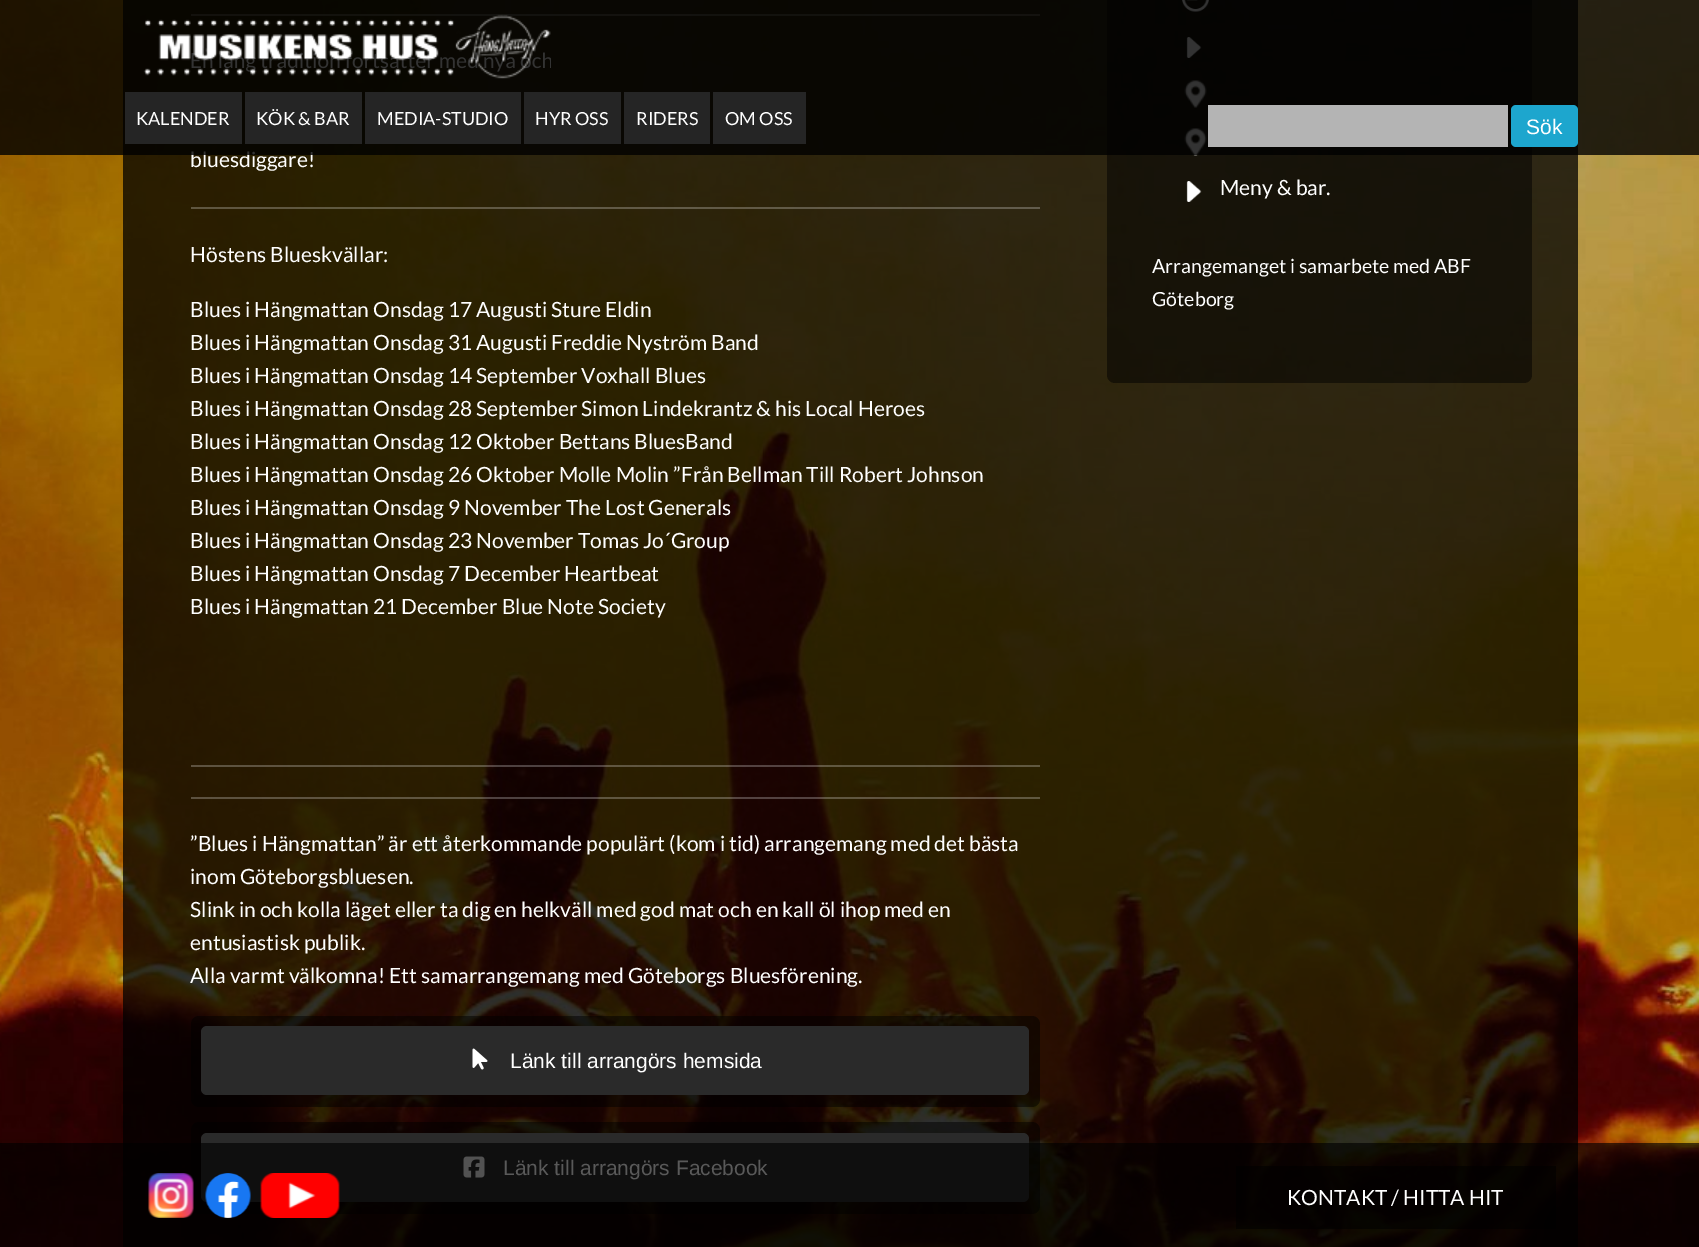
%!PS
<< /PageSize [1699 1247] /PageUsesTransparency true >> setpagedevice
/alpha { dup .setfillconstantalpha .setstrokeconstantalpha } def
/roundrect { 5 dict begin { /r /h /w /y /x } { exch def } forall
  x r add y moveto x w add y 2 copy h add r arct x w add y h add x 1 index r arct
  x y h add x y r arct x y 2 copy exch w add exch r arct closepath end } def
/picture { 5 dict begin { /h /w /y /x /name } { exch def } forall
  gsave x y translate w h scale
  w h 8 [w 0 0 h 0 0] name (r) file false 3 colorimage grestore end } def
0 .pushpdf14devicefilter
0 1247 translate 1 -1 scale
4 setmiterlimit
1 setgray
0 0 1699 1247 rectfill
(img1.rgb) 0 0 1699 1247 picture
0.75 alpha
0 setgray
123 0 1455 1247 rectfill
0.25 alpha
1 setgray
191 14 849 2 rectfill
/Lato-Regular [21 0 0 -21 0 0] selectfont
1 alpha
190 167 moveto (bluesdiggare!) show
0.5 alpha
0 setgray
1107 -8 425 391 8 roundrect fill
1 alpha
(img5.rgb) 1182 0 27 12 picture
(img6.rgb) 1186 37 16 21 picture
(img7.rgb) 1184 80 23 28 picture
(img8.rgb) 1184 128 23 28 picture
0.8 alpha
0 0 1699 155 rectfill
1 alpha
(img2.rgb) 143 14 408 65 picture
0.145 setgray
125 92 117 52 rectfill
/Lato-Regular [18 0 0 -18 0 0] selectfont
1 setgray
136 125 moveto (KALENDER) show
0.145 setgray
245 92 117 52 rectfill
1 setgray
256 125 moveto (KÖK & BAR) show
0.145 setgray
365 92 156 52 rectfill
1 setgray
377 125 moveto (MEDIA-STUDIO) show
0.145 setgray
524 92 97 52 rectfill
1 setgray
535 125 moveto (HYR OSS) show
0.145 setgray
624 92 86 52 rectfill
1 setgray
636 125 moveto (RIDERS) show
0.145 setgray
713 92 93 52 rectfill
1 setgray
725 125 moveto (OM OSS) show
0.7 alpha
1208 105 300 42 rectfill
1 alpha
0.114 0.651 0.808 setrgbcolor
1511 105 67 42 5 roundrect fill
/LiberationSans-Regular [21 0 0 -21 0 0] selectfont
1 setgray
1526 134 moveto (Sök) show
0.25 alpha
191 207 849 2 rectfill
/Lato-Regular [21 0 0 -21 0 0] selectfont
1 alpha
190 262 moveto (Höstens Blueskvällar:) show
190 317 moveto (Blues i Hängmattan Onsdag 17 Augusti Sture Eldin) show
190 350 moveto (Blues i Hängmattan Onsdag 31 Augusti Freddie Nyström Band) show
190 383 moveto (Blues i Hängmattan Onsdag 14 September Voxhall Blues) show
190 416 moveto (Blues i Hängmattan Onsdag 28 September Simon Lindekrantz & his Local Heroes) show
190 449 moveto (Blues i Hängmattan Onsdag 12 Oktober Bettans BluesBand) show
190 482 moveto (Blues i Hängmattan Onsdag 26 Oktober Molle Molin ”Från Bellman Till Robert Johnson) show
190 515 moveto (Blues i Hängmattan Onsdag 9 November The Lost Generals) show
190 548 moveto (Blues i Hängmattan Onsdag 23 November Tomas Jo´Group) show
190 581 moveto (Blues i Hängmattan Onsdag 7 December Heartbeat) show
190 614 moveto (Blues i Hängmattan 21 December Blue Note Society) show
0.25 alpha
191 765 849 2 rectfill
191 797 849 2 rectfill
1 alpha
190 851 moveto (”Blues i Hängmattan” är ett återkommande populärt \(kom i tid\) arrangemang med det bästa) show
190 884 moveto (inom Göteborgsbluesen.) show
190 917 moveto (Slink in och kolla läget eller ta dig en helkväll med god mat och en kall öl ihop med en) show
190 950 moveto (entusiastisk publik.) show
190 983 moveto (Alla varmt välkomna! Ett samarrangemang med Göteborgs Bluesförening.) show
0.5 alpha
0 setgray
191 1016 849 91 8 roundrect fill
1 alpha
0.165 setgray
201 1026 828 69 6 roundrect fill
(img3.rgb) 472 1048 16 22 picture
/LiberationSans-Regular [21 0 0 -21 0 0] selectfont
1 setgray
510 1068 moveto (Länk till arrangörs hemsida) show
0.5 alpha
0 setgray
191 1122 849 92 8 roundrect fill
1 alpha
0.165 setgray
201 1133 828 69 6 roundrect fill
(img4.rgb) 463 1156 22 22 picture
1 setgray
503 1175 moveto (Länk till arrangörs Facebook) show
(img9.rgb) 1186 181 16 21 picture
/Lato-Regular [21 0 0 -21 0 0] selectfont
1220 195 moveto (Meny & bar.) show
/Lato-Regular [19.5 0 0 -19.5 0 0] selectfont
1152 273 moveto (Arrangemanget i samarbete med ABF) show
1152 306 moveto (Göteborg) show
0.65 alpha
0 setgray
0 1143 1699 104 rectfill
1 alpha
(img10.rgb) 148 1173 46 45 picture
(img11.rgb) 205 1173 46 45 picture
(img12.rgb) 260 1173 80 45 picture
0.6 alpha
1236 1166 320 63 rectfill
/Lato-Regular [21 0 0 -21 0 0] selectfont
1 alpha
1 setgray
1287 1205 moveto (KONTAKT / HITTA HIT) show
.poppdf14devicefilter showpage
